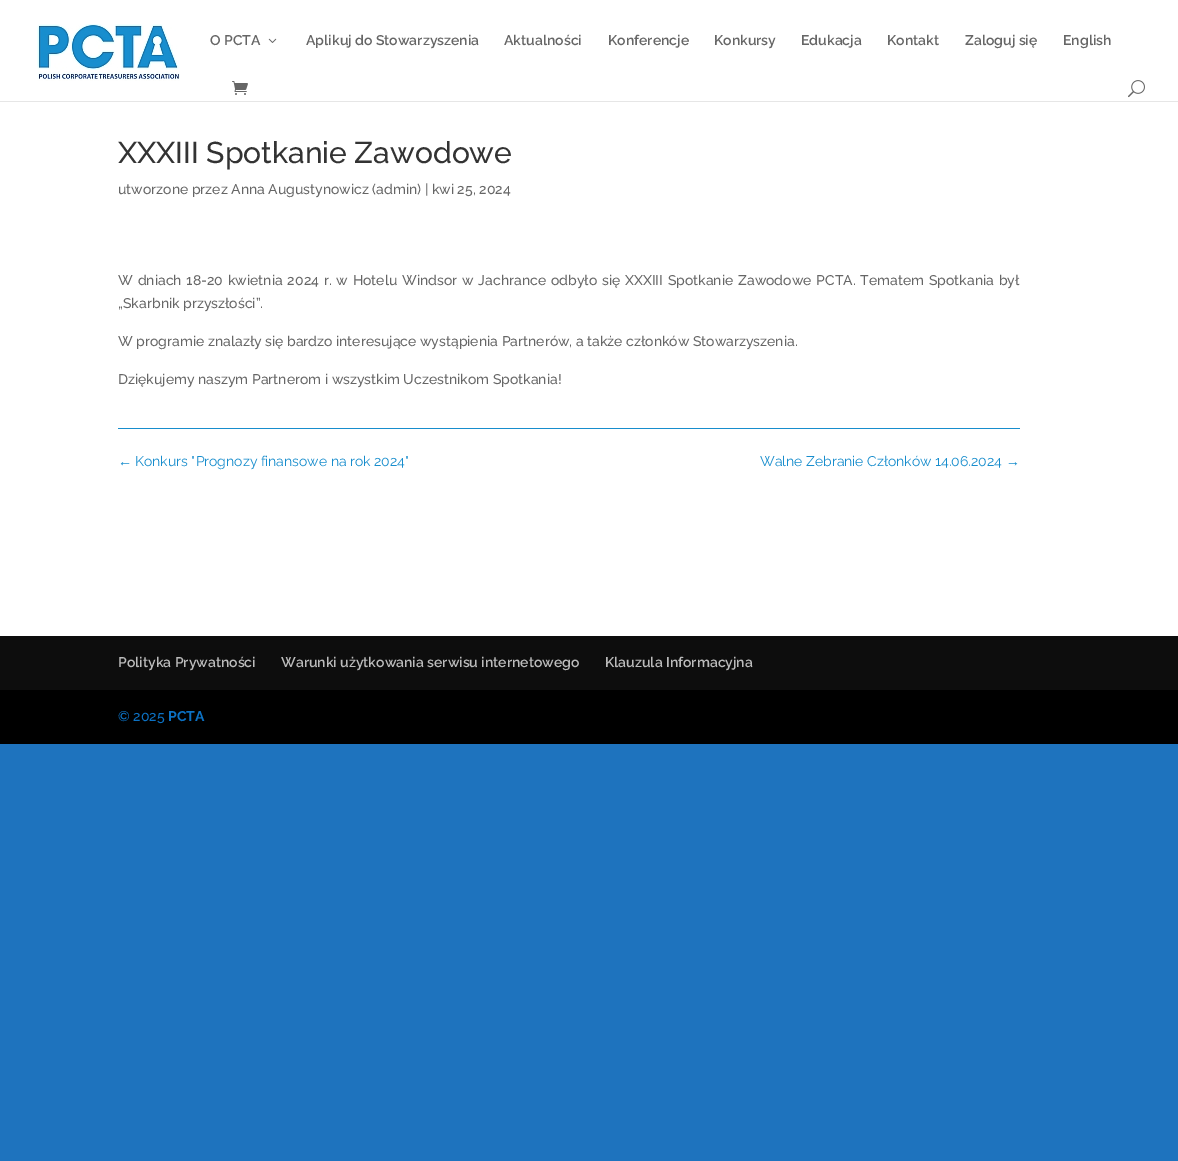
%!PS
<< /PageSize [1178 1161] >> setpagedevice
/picture { 5 dict begin { /h /w /y /x /name } { exch def } forall
  gsave x y translate w h scale
  w h 8 [w 0 0 h 0 0] name (r) file false 3 colorimage grestore end } def
0 1161 translate 1 -1 scale
4 setmiterlimit
0.118 0.451 0.745 setrgbcolor
0 0 1178 1161 rectfill
0.902 setgray
0 101 1178 1 rectfill
1 setgray
0 0 1178 101 rectfill
(img1.rgb) 37 24 143 57 picture
/Raleway-SemiBold [14 0 0 -14 0 0] selectfont
0.4 setgray
210 45 moveto (O PCTA) show
(img2.rgb) 268 38 9 5 picture
306 45 moveto (Aplikuj do Stowarzyszenia) show
504 45 moveto (Aktualności) show
608 45 moveto (Konferencje) show
714 45 moveto (Konkursy) show
801 45 moveto (Edukacja) show
887 45 moveto (Kontakt) show
965 45 moveto (Zaloguj się) show
1063 45 moveto (English) show
(img3.rgb) 232 81 16 14 picture
(img4.rgb) 1128 80 17 18 picture
1 setgray
0 102 1178 534 rectfill
/Raleway-Medium [30 0 0 -30 0 0] selectfont
0.2 setgray
118 163 moveto (XXXIII Spotkanie Zawodowe) show
/Raleway-Medium [14 0 0 -14 0 0] selectfont
0.4 setgray
118 194 moveto (utworzone przez Anna Augustynowicz \(admin\) | kwi 25, 2024) show
118 285 moveto 1.3 0 32 (W dniach 18-20 kwietnia 2024 r. w Hotelu Windsor w Jachrance odbyło się XXXIII Spotkanie Zawodowe PCTA. Tematem Spotkania był) widthshow
118 308 moveto („Skarbnik przyszłości”.) show
118 346 moveto (W programie znalazły się bardzo interesujące wystąpienia Partnerów, a także członków Stowarzyszenia.) show
118 384 moveto (Dziękujemy naszym Partnerom i wszystkim Uczestnikom Spotkania!) show
0.09 0.553 0.804 setrgbcolor
118 428 902 1 rectfill
/LiberationSans-Regular [14 0 0 -14 0 0] selectfont
118 466 moveto (←) show
/Raleway-Regular [14 0 0 -14 0 0] selectfont
135 466 moveto (Konkurs "Prognozy finansowe na rok 2024") show
760 466 moveto (Walne Zebranie Członków 14.06.2024) show
/LiberationSans-Regular [14 0 0 -14 0 0] selectfont
1006 466 moveto (→) show
0 setgray
0 690 1178 54 rectfill
0.051 setgray
0 636 1178 54 rectfill
/Raleway-SemiBold [14 0 0 -14 0 0] selectfont
0.733 setgray
118 667 moveto (Polityka Prywatności) show
281 667 moveto (Warunki użytkowania serwisu internetowego) show
605 667 moveto (Klauzula Informacyjna) show
/Raleway-Medium [14 0 0 -14 0 0] selectfont
0.047 0.443 0.765 setrgbcolor
118 721 moveto (© 2025) show
/Raleway-Bold [14 0 0 -14 0 0] selectfont
168 721 moveto (PCTA) show
showpage
